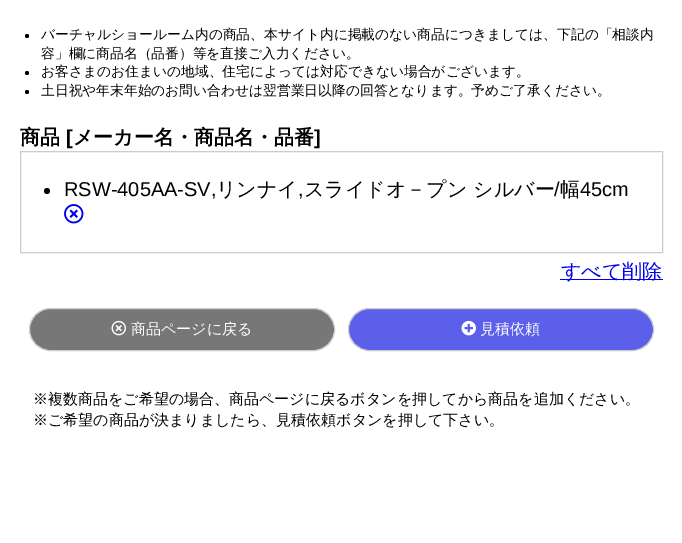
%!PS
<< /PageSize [682 543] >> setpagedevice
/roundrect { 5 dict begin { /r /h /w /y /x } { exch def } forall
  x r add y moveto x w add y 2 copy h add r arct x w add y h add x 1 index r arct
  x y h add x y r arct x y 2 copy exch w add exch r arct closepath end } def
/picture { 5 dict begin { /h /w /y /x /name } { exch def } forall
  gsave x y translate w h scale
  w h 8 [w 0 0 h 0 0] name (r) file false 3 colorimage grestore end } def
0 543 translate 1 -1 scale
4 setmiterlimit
1 setgray
0 0 682 543 rectfill
0 setgray
newpath 27 36 2 0 360 arc closepath fill
/WenQuanYiZenHei-Medium [13.75 0 0 -13.75 0 0] selectfont
41 39 moveto (バーチャルショールーム内の商品、本サイト内に掲載のない商品につきましては、下記の「相談内) show
41 58 moveto (容」欄に商品名（品番）等を直接ご入力ください。) show
newpath 27 73 2 0 360 arc closepath fill
41 76 moveto (お客さまのお住まいの地域、住宅によっては対応できない場合がございます。) show
newpath 27 92 2 0 360 arc closepath fill
41 95 moveto (土日祝や年末年始のお問い合わせは翌営業日以降の回答となります。予めご了承ください。) show
/WenQuanYiZenHei-Bold [20 0 0 -20 0 0] selectfont
20 144 moveto (商品) show
/LiberationSans-Bold [20 0 0 -20 0 0] selectfont
66 144 moveto ([) show
/WenQuanYiZenHei-Bold [20 0 0 -20 0 0] selectfont
73 144 moveto (メーカー名・商品名・品番) show
/LiberationSans-Bold [20 0 0 -20 0 0] selectfont
314 144 moveto (]) show
0.8 setgray
20.5 151.5 642 101 rectstroke
0 setgray
newpath 47 191 3 0 360 arc closepath fill
/LiberationSans-Regular [20 0 0 -20 0 0] selectfont
64 196 moveto (RSW-405AA-SV,) show
/WenQuanYiZenHei-Medium [20 0 0 -20 0 0] selectfont
216 196 moveto (リンナイ) show
304 196 moveto (スライドオ－プン シルバー) show
/LiberationSans-Regular [20 0 0 -20 0 0] selectfont
554 196 moveto (/) show
/WenQuanYiZenHei-Medium [20 0 0 -20 0 0] selectfont
560 196 moveto (幅) show
/LiberationSans-Regular [20 0 0 -20 0 0] selectfont
580 196 moveto (45cm) show
298 196 moveto (,) show
(img1.rgb) 64 204 20 20 picture
0 0 0.933 setrgbcolor
560 279 103 1 rectfill
/WenQuanYiZenHei-Medium [20 0 0 -20 0 0] selectfont
561 278 moveto (すべて削除) show
0.467 setgray
29.5 308.5 305 42 21 roundrect gsave fill grestore
0.8 setgray
stroke
(img2.rgb) 111 320 15 16 picture
/WenQuanYiZenHei-Medium [15 0 0 -15 0 0] selectfont
1 setgray
131 334 moveto (商品ページに戻る) show
0.361 0.373 0.914 setrgbcolor
348.5 308.5 305 42 21 roundrect gsave fill grestore
0.8 setgray
stroke
(img3.rgb) 461 320 15 16 picture
1 setgray
480 334 moveto (見積依頼) show
0 setgray
33 404 moveto (※複数商品をご希望の場合、商品ページに戻るボタンを押してから商品を追加ください。) show
33 425 moveto (※ご希望の商品が決まりましたら、見積依頼ボタンを押して下さい。) show
showpage
